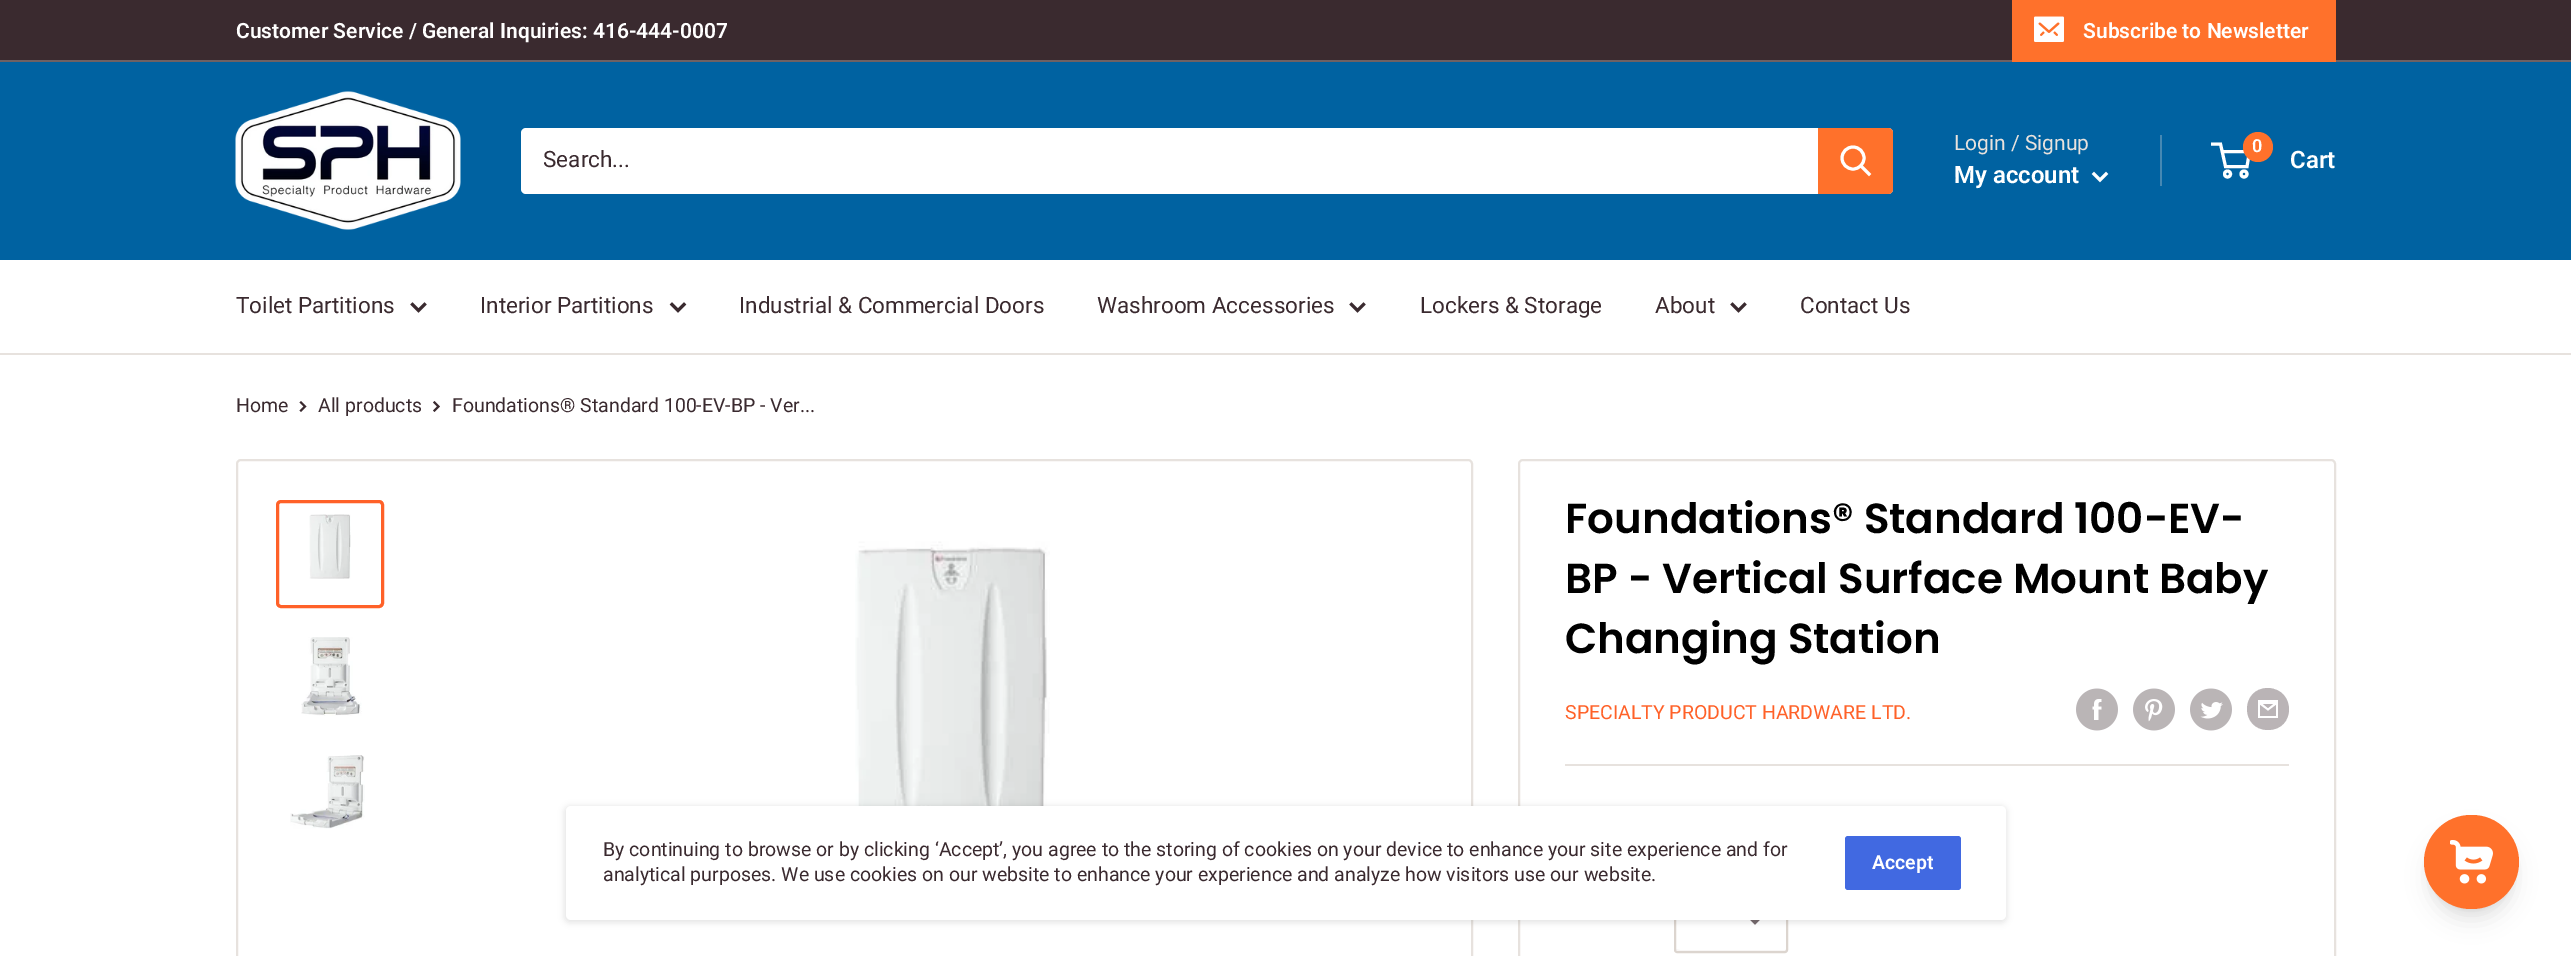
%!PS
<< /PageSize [2571 956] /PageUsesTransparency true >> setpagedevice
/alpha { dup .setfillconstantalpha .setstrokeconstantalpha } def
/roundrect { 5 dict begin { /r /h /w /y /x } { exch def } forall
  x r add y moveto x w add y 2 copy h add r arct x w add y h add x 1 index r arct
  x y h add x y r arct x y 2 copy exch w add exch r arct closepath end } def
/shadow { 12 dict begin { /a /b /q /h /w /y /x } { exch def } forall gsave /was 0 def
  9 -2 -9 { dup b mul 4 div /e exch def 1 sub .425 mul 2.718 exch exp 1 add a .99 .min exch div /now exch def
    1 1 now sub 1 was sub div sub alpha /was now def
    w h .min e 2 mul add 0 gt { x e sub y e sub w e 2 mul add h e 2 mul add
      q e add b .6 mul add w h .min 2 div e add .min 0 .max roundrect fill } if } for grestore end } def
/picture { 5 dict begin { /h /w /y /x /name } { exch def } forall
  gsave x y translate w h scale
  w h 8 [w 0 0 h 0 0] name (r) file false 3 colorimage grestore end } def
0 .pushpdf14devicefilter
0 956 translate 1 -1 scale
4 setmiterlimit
1 setgray
0 0 2571 956 rectfill
0.227 0.165 0.184 setrgbcolor
0 0 2571 60 rectfill
0.435 0.38 0.388 setrgbcolor
0 60 2571 2 rectfill
/Roboto-SemiBold [21 0 0 -21 0 0] selectfont
1 setgray
236 38 moveto (Customer Service / General Inquiries: 416-444-0007) show
1 0.443 0.169 setrgbcolor
newpath 2012 60 moveto 2012 62 lineto 2336 62 lineto 2336 2 lineto 2336 60 lineto closepath fill
2012 0 324 60 rectfill
(img1.rgb) 2034 16 30 26 picture
1 setgray
2083 38 moveto (Subscribe to Newsletter) show
0 0.384 0.631 setrgbcolor
0 62 2571 198 rectfill
(img2.rgb) 235 91 226 139 picture
1 setgray
521 128 1372 66 5 roundrect fill
/Roboto-Regular [22.5 0 0 -22.5 0 0] selectfont
0.227 0.165 0.184 setrgbcolor
543 167 moveto (Search...) show
1 0.443 0.169 setrgbcolor
newpath 1818 128 moveto 1888 128 lineto 1891 128 1893 130 1893 133 curveto 1893 189 lineto 1893 192 1891 194 1888 194 curveto 1818 194 lineto closepath fill
1 setgray
3 setlinewidth
2 setlinecap
newpath 1869 174 moveto 1861.5 166.5 lineto stroke
0 setlinecap
newpath 1853 158 11 0 360 arc closepath stroke
/Roboto-Regular [21 0 0 -21 0 0] selectfont
0.914 0.886 0.867 setrgbcolor
1954 150 moveto (Login / Signup) show
0.275 0.533 0.702 setrgbcolor
2160 135 2 51 rectfill
/Roboto-SemiBold [24 0 0 -24 0 0] selectfont
1 setgray
1954 183 moveto (My account) show
2 setlinecap
newpath 2106 174 moveto 2100 180 lineto 2094 174 lineto stroke
0 setlinecap
newpath 2227.5 174 3 0 360 arc closepath stroke
newpath 2244 174 3 0 360 arc closepath stroke
newpath 2222 151.5 moveto 2249.5 151.5 lineto 2247 166.5 lineto 2225.5 166.5 lineto 2220.5 144 lineto 2211 144 lineto stroke
1 0.443 0.169 setrgbcolor
newpath 2258 147 15 0 360 arc closepath fill
/Roboto-SemiBold [18 0 0 -18 0 0] selectfont
1 setgray
2252 152 moveto (0) show
/Roboto-SemiBold [24 0 0 -24 0 0] selectfont
2290 168 moveto (Cart) show
0.906 0.886 0.871 setrgbcolor
0 353 2571 2 rectfill
/Roboto-Regular [22.5 0 0 -22.5 0 0] selectfont
0.227 0.165 0.184 setrgbcolor
236 313 moveto (Toilet Partitions) show
2 setlinecap
newpath 424.5 304.5 moveto 418.5 310.5 lineto 412.5 304.5 lineto stroke
480 313 moveto (Interior Partitions) show
newpath 684 304.5 moveto 678 310.5 lineto 672 304.5 lineto stroke
739 313 moveto (Industrial & Commercial Doors) show
1097 313 moveto (Washroom Accessories) show
newpath 1363.5 304.5 moveto 1357.5 310.5 lineto 1351.5 304.5 lineto stroke
1420 313 moveto (Lockers & Storage) show
1655 313 moveto (About) show
newpath 1744.5 304.5 moveto 1738.5 310.5 lineto 1732.5 304.5 lineto stroke
1800 313 moveto (Contact Us) show
/Roboto-Regular [19.5 0 0 -19.5 0 0] selectfont
236 412 moveto (Home) show
2 setlinewidth
newpath 301 402.5 moveto 305 406.5 lineto 301 410.5 lineto stroke
318 412 moveto (All products) show
newpath 434.5 402.5 moveto 438.5 406.5 lineto 434.5 410.5 lineto stroke
452 412 moveto (Foundations® Standard 100-EV-BP - Ver...) show
0.906 0.886 0.871 setrgbcolor
0 setlinecap
237 460 1235 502 4 roundrect stroke
1 0.38 0.157 setrgbcolor
3 setlinewidth
277.5 501.5 105 105 3.5 roundrect stroke
(img3.rgb) 309 514 42 65 picture
(img4.rgb) 301 637 61 79 picture
(img5.rgb) 290 755 75 74 picture
(img6.rgb) 855 541 195 265 picture
0.906 0.886 0.871 setrgbcolor
2 setlinewidth
1519 460 816 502 4 roundrect stroke
/Poppins-SemiBold [42 0 0 -42 0 0] selectfont
0 setgray
1565 533 moveto (Foundations® Standard 100-EV-) show
1565 593 moveto (BP - Vertical Surface Mount Baby) show
1565 653 moveto (Changing Station) show
/Roboto-Regular [19.5 0 0 -19.5 0 0] selectfont
1 0.38 0.157 setrgbcolor
1565 719 moveto (SPECIALTY PRODUCT HARDWARE LTD.) show
(img7.rgb) 2076 688 42 43 picture
(img8.rgb) 2133 688 42 43 picture
(img9.rgb) 2190 688 42 43 picture
0.729 0.706 0.714 setrgbcolor
newpath 2268 730 moveto 2240 730 2240 688 2268 688 curveto 2296 689 2296 730 2268 730 curveto closepath 2263 704 moveto 2273 704 lineto 2268 708 lineto closepath 2276 705 moveto 2276 716 lineto 2260 716 lineto 2260 705 lineto 2268 711 lineto closepath 2278 700 moveto 2258 700 lineto 2258 718 lineto 2278 718 lineto closepath fill
0.906 0.886 0.871 setrgbcolor
1565 764 724 2 rectfill
0.973 0.965 0.961 setrgbcolor
newpath 1676 949 moveto 1676 950 1677 951 1678 951 curveto 1768 951 lineto 1793 951 1787 956 1787 930 curveto 1787 889 lineto 1786 908 lineto 1786 949 lineto 1785 950 lineto 1680 950 lineto closepath fill
0.863 0.835 0.812 setrgbcolor
1675 888 112 64 2 roundrect stroke
0.459 0.416 0.427 setrgbcolor
3 setlinewidth
2 setlinecap
newpath 1761 916.5 moveto 1755 922.5 lineto 1749 916.5 lineto stroke
0 setgray
564 806 1443 117 6 3 0.1 shadow
1 setgray
566 806 1440 114 5 roundrect fill
0.227 0.165 0.184 setrgbcolor
603 856 moveto (By continuing to browse or by clicking ‘Accept’, you agree to the storing of cookies on your device to enhance your site experience and for) show
603 881 moveto (analytical purposes. We use cookies on our website to enhance your experience and analyze how visitors use our website.) show
0.255 0.412 0.882 setrgbcolor
1845 836 116 54 3 roundrect fill
/Roboto-SemiBold [19.5 0 0 -19.5 0 0] selectfont
1 setgray
1872 869 moveto (Accept) show
0 setgray
2430 827 83 82 41 4.5 0.1 shadow
2429 834 85 86 42.5 11 0.1 shadow
1 0.443 0.169 setrgbcolor
2424 815 95 94 47 roundrect fill
(img10.rgb) 2450 840 43 44 picture
.poppdf14devicefilter showpage
